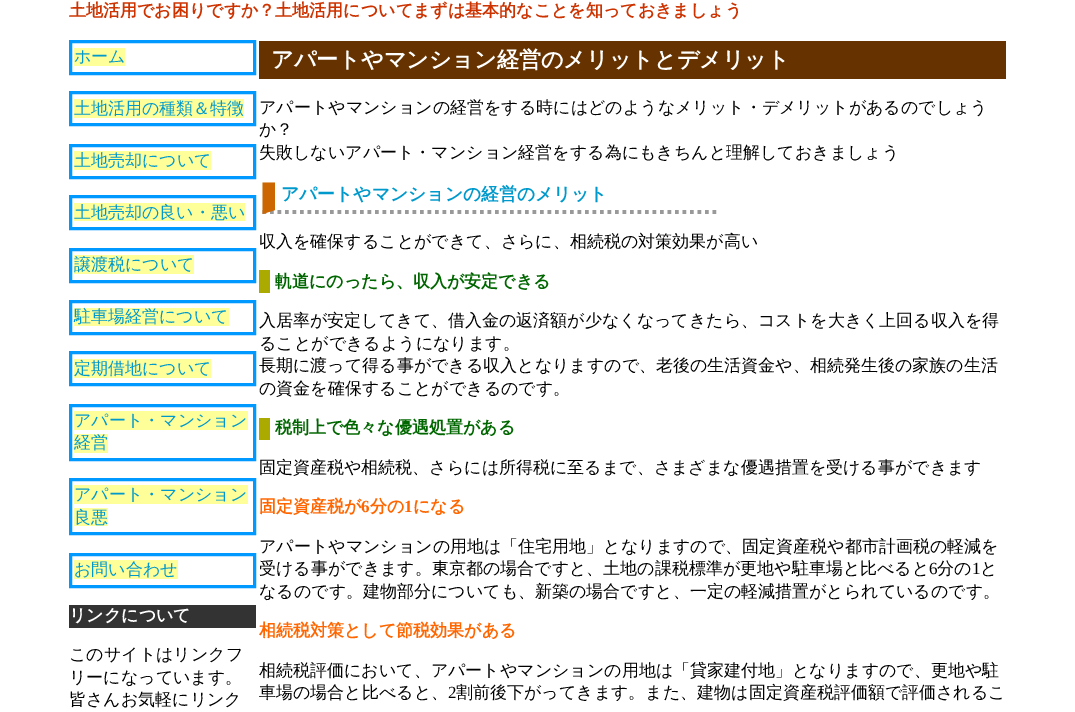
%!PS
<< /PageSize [1075 712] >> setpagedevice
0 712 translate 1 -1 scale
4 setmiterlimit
1 setgray
0 0 1075 712 rectfill
/WenQuanYiZenHei-Bold [17 0 0 -17 0 0] selectfont
0.8 0.2 0 setrgbcolor
69 16 moveto (土地活用でお困りですか？土地活用についてまずは基本的なことを知っておきましょう) show
0 0.6 1 setrgbcolor
3 setlinewidth
70.5 41.5 184 32 rectstroke
1 1 0.6 setrgbcolor
74 48 51 18 rectfill
/WenQuanYiZenHei-Medium [17 0 0 -17 0 0] selectfont
0 0.6 0.8 setrgbcolor
74 62 moveto (ホーム) show
0 0.6 1 setrgbcolor
70.5 92.5 184 32 rectstroke
1 1 0.6 setrgbcolor
74 99 170 19 rectfill
0 0.6 0.8 setrgbcolor
74 114 moveto (土地活用の種類＆特徴) show
0 0.6 1 setrgbcolor
70.5 145.5 184 32 rectstroke
1 1 0.6 setrgbcolor
74 151 137 19 rectfill
0 0.6 0.8 setrgbcolor
74 166 moveto (土地売却について) show
0 0.6 1 setrgbcolor
70.5 196.5 184 32 rectstroke
1 1 0.6 setrgbcolor
74 203 171 18 rectfill
0 0.6 0.8 setrgbcolor
74 218 moveto (土地売却の良い・悪い) show
0 0.6 1 setrgbcolor
70.5 249.5 184 32 rectstroke
1 1 0.6 setrgbcolor
74 255 120 19 rectfill
0 0.6 0.8 setrgbcolor
74 270 moveto (譲渡税について) show
0 0.6 1 setrgbcolor
70.5 301.5 184 32 rectstroke
1 1 0.6 setrgbcolor
74 308 155 18 rectfill
0 0.6 0.8 setrgbcolor
74 322 moveto (駐車場経営について) show
0 0.6 1 setrgbcolor
70.5 352.5 184 32 rectstroke
1 1 0.6 setrgbcolor
74 359 137 19 rectfill
0 0.6 0.8 setrgbcolor
74 374 moveto (定期借地について) show
0 0.6 1 setrgbcolor
70.5 405.5 184 54 rectstroke
1 1 0.6 setrgbcolor
74 411 174 19 rectfill
0 0.6 0.8 setrgbcolor
74 426 moveto (アパート・マンション) show
1 1 0.6 setrgbcolor
74 434 34 19 rectfill
0 0.6 0.8 setrgbcolor
74 448 moveto (経営) show
0 0.6 1 setrgbcolor
70.5 479.5 184 54 rectstroke
1 1 0.6 setrgbcolor
74 485 174 19 rectfill
0 0.6 0.8 setrgbcolor
74 500 moveto (アパート・マンション) show
1 1 0.6 setrgbcolor
74 508 34 18 rectfill
0 0.6 0.8 setrgbcolor
74 523 moveto (良悪) show
0 0.6 1 setrgbcolor
70.5 554.5 184 32 rectstroke
1 1 0.6 setrgbcolor
74 560 104 19 rectfill
0 0.6 0.8 setrgbcolor
74 575 moveto (お問い合わせ) show
0.2 setgray
69 605 187 23 rectfill
/WenQuanYiZenHei-Bold [17 0 0 -17 0 0] selectfont
1 setgray
69 621 moveto (リンクについて) show
/WenQuanYiZenHei-Medium [17 0 0 -17 0 0] selectfont
0 setgray
69 660 moveto (このサイトはリンクフ) show
69 683 moveto (リーになっています。) show
69 705 moveto (皆さんお気軽にリンク) show
0.4 0.2 0 setrgbcolor
259 41 747 38 rectfill
/WenQuanYiZenHei-Bold [22.1 0 0 -22.1 0 0] selectfont
1 setgray
271 67 moveto (アパートやマンション経営のメリットとデメリット) show
/WenQuanYiZenHei-Medium [17 0 0 -17 0 0] selectfont
0 setgray
259 113 moveto (アパートやマンションの経営をする時にはどのようなメリット・デメリットがあるのでしょう) show
259 135 moveto (か？) show
259 158 moveto (失敗しないアパート・マンション経営をする為にもきちんと理解しておきましょう) show
0.6 setgray
3.8 setlinewidth
[3.75 3.75] 0 setdash
newpath 262.5 212 moveto 719 212 lineto stroke
0.8 0.4 0 setrgbcolor
newpath 262.5 214 moveto 262.5 182.5 lineto 275 182.5 lineto 275 210 lineto closepath fill
/WenQuanYiZenHei-Bold [17.8 0 0 -17.8 0 0] selectfont
0 0.6 0.8 setrgbcolor
281 200 moveto (アパートやマンションの経営のメリット) show
/WenQuanYiZenHei-Medium [17 0 0 -17 0 0] selectfont
0 setgray
259 247 moveto (収入を確保することができて、さらに、相続税の対策効果が高い) show
0.667 0.667 0 setrgbcolor
259 270 11 23 rectfill
/WenQuanYiZenHei-Bold [17 0 0 -17 0 0] selectfont
0 0.4 0 setrgbcolor
275 287 moveto (軌道にのったら、収入が安定できる) show
/WenQuanYiZenHei-Medium [17 0 0 -17 0 0] selectfont
0 setgray
259 326 moveto (入居率が安定してきて、借入金の返済額が少なくなってきたら、コストを大きく上回る収入を得) show
259 349 moveto (ることができるようになります。) show
259 371 moveto (長期に渡って得る事ができる収入となりますので、老後の生活資金や、相続発生後の家族の生活) show
259 394 moveto (の資金を確保することができるのです。) show
0.667 0.667 0 setrgbcolor
259 418 11 22 rectfill
/WenQuanYiZenHei-Bold [17 0 0 -17 0 0] selectfont
0 0.4 0 setrgbcolor
275 433 moveto (税制上で色々な優遇処置がある) show
/WenQuanYiZenHei-Medium [17 0 0 -17 0 0] selectfont
0 setgray
259 473 moveto (固定資産税や相続税、さらには所得税に至るまで、さまざまな優遇措置を受ける事ができます) show
/WenQuanYiZenHei-Bold [17 0 0 -17 0 0] selectfont
1 0.4 0 setrgbcolor
259 512 moveto (固定資産税が) show
/LiberationSerif-Bold [17 0 0 -17 0 0] selectfont
361 512 moveto (6) show
/WenQuanYiZenHei-Bold [17 0 0 -17 0 0] selectfont
370 512 moveto (分の) show
/LiberationSerif-Bold [17 0 0 -17 0 0] selectfont
404 512 moveto (1) show
/WenQuanYiZenHei-Bold [17 0 0 -17 0 0] selectfont
413 512 moveto (になる) show
/WenQuanYiZenHei-Medium [17 0 0 -17 0 0] selectfont
0 setgray
259 552 moveto (アパートやマンションの用地は「住宅用地」となりますので、固定資産税や都市計画税の軽減を) show
259 574 moveto (受ける事ができます。東京都の場合ですと、土地の課税標準が更地や駐車場と比べると) show
/LiberationSerif-Regular [17 0 0 -17 0 0] selectfont
929 574 moveto (6) show
/WenQuanYiZenHei-Medium [17 0 0 -17 0 0] selectfont
937 574 moveto (分の) show
/LiberationSerif-Regular [17 0 0 -17 0 0] selectfont
972 574 moveto (1) show
/WenQuanYiZenHei-Medium [17 0 0 -17 0 0] selectfont
980 574 moveto (と) show
259 597 moveto (なるのです。建物部分についても、新築の場合ですと、一定の軽減措置がとられているのです。) show
/WenQuanYiZenHei-Bold [17 0 0 -17 0 0] selectfont
1 0.4 0 setrgbcolor
259 636 moveto (相続税対策として節税効果がある) show
/WenQuanYiZenHei-Medium [17 0 0 -17 0 0] selectfont
0 setgray
259 676 moveto (相続税評価において、アパートやマンションの用地は「貸家建付地」となりますので、更地や駐) show
259 698 moveto (車場の場合と比べると、) show
/LiberationSerif-Regular [17 0 0 -17 0 0] selectfont
448 698 moveto (2) show
/WenQuanYiZenHei-Medium [17 0 0 -17 0 0] selectfont
456 698 moveto (割前後下がってきます。また、建物は固定資産税評価額で評価されるこ) show
showpage
